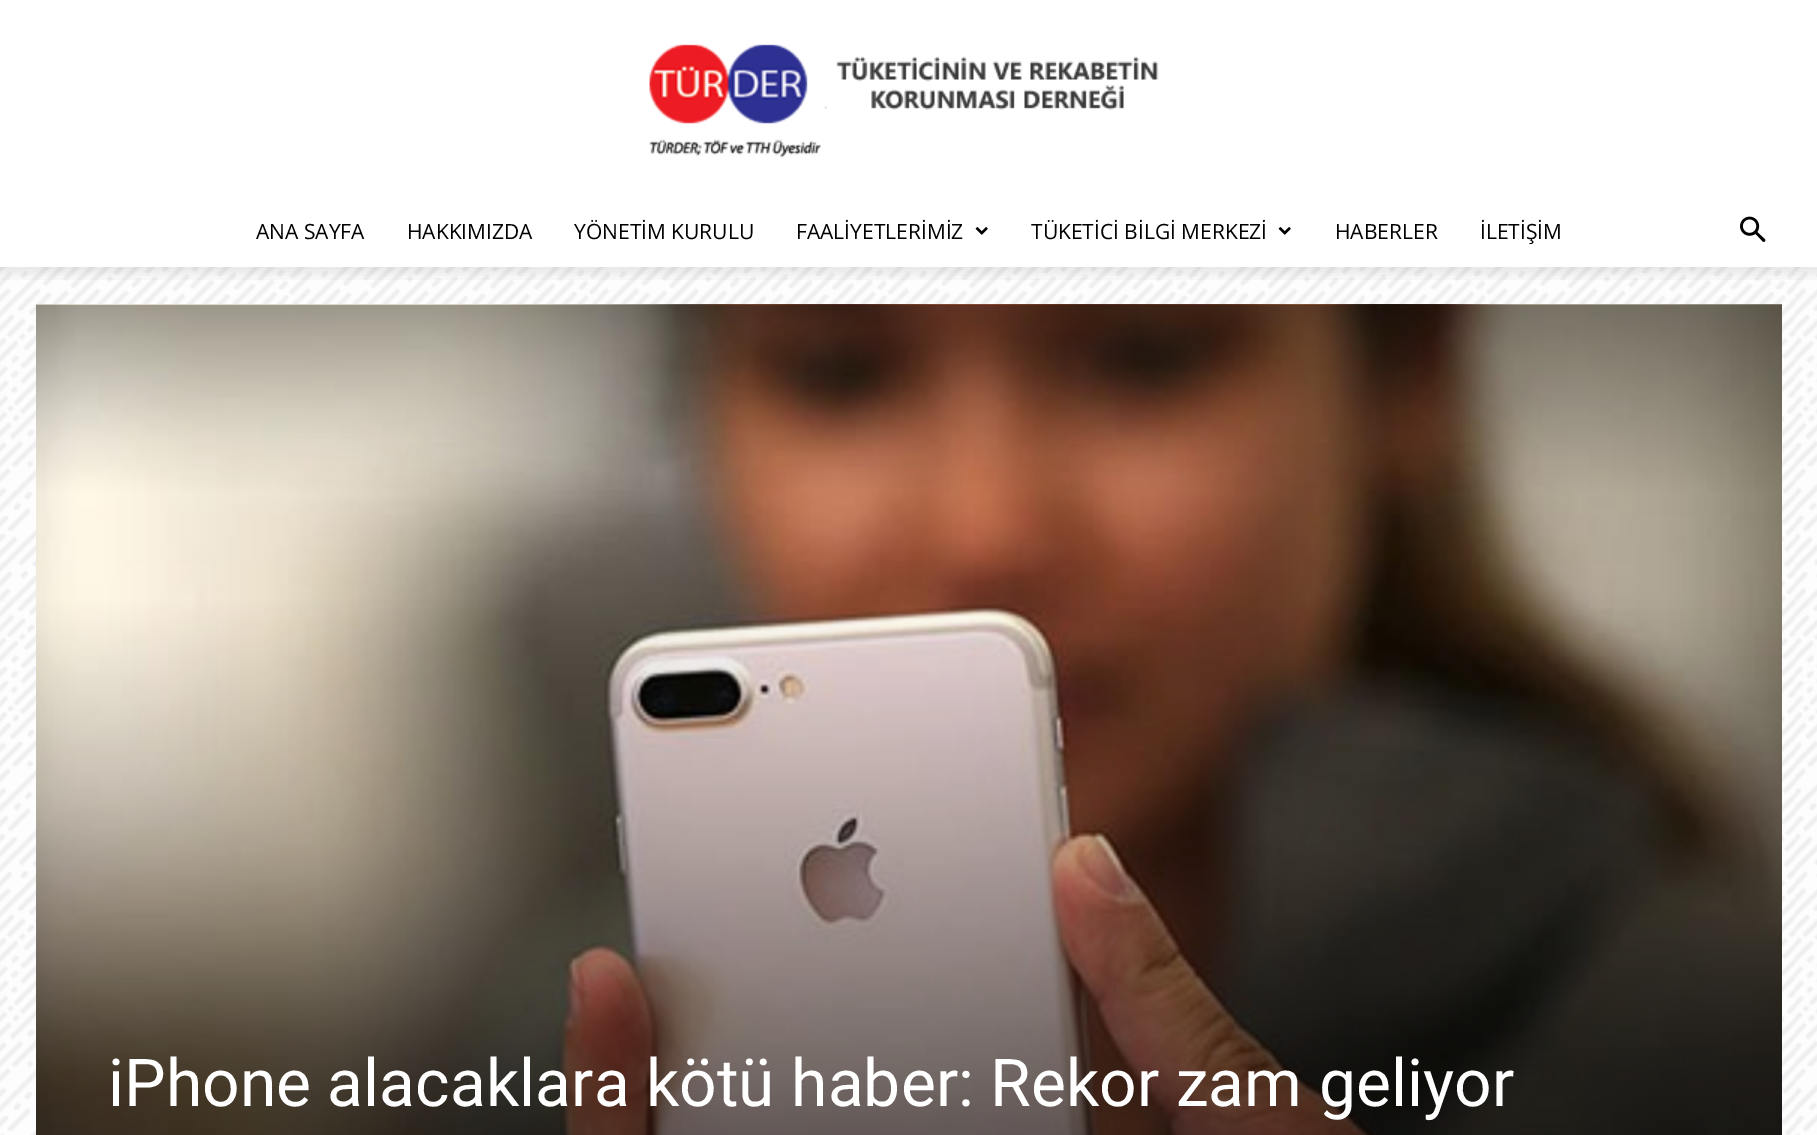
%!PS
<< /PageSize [1817 1135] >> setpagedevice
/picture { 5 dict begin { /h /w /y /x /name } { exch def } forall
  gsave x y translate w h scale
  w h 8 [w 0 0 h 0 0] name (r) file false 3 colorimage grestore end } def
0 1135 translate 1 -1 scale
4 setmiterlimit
1 setgray
0 0 1817 1135 rectfill
(img1.rgb) 0 267 1817 868 picture
(img2.rgb) 649 44 510 114 picture
/OpenSans-Regular [21 0 0 -21 0 0] selectfont
0 setgray
256 239 moveto (ANA SAYFA) show
407 239 moveto (HAKKIMIZDA) show
574 239 moveto (YÖNETİM KURULU) show
796 239 moveto (FAALİYETLERİMİZ) show
(img3.rgb) 975 227 13 8 picture
1031 239 moveto (TÜKETİCİ BİLGİ MERKEZİ) show
(img3.rgb) 1278 227 13 8 picture
1335 239 moveto (HABERLER) show
1480 239 moveto (İLETİŞİM) show
(img4.rgb) 1740 216 26 26 picture
(img5.rgb) 0 267 1817 13 picture
(img6.rgb) 36 304 1746 831 picture
/Roboto-Regular [66 0 0 -66 0 0] selectfont
1 setgray
108 1106 moveto (iPhone alacaklara kötü haber: Rekor zam geliyor) show
showpage
